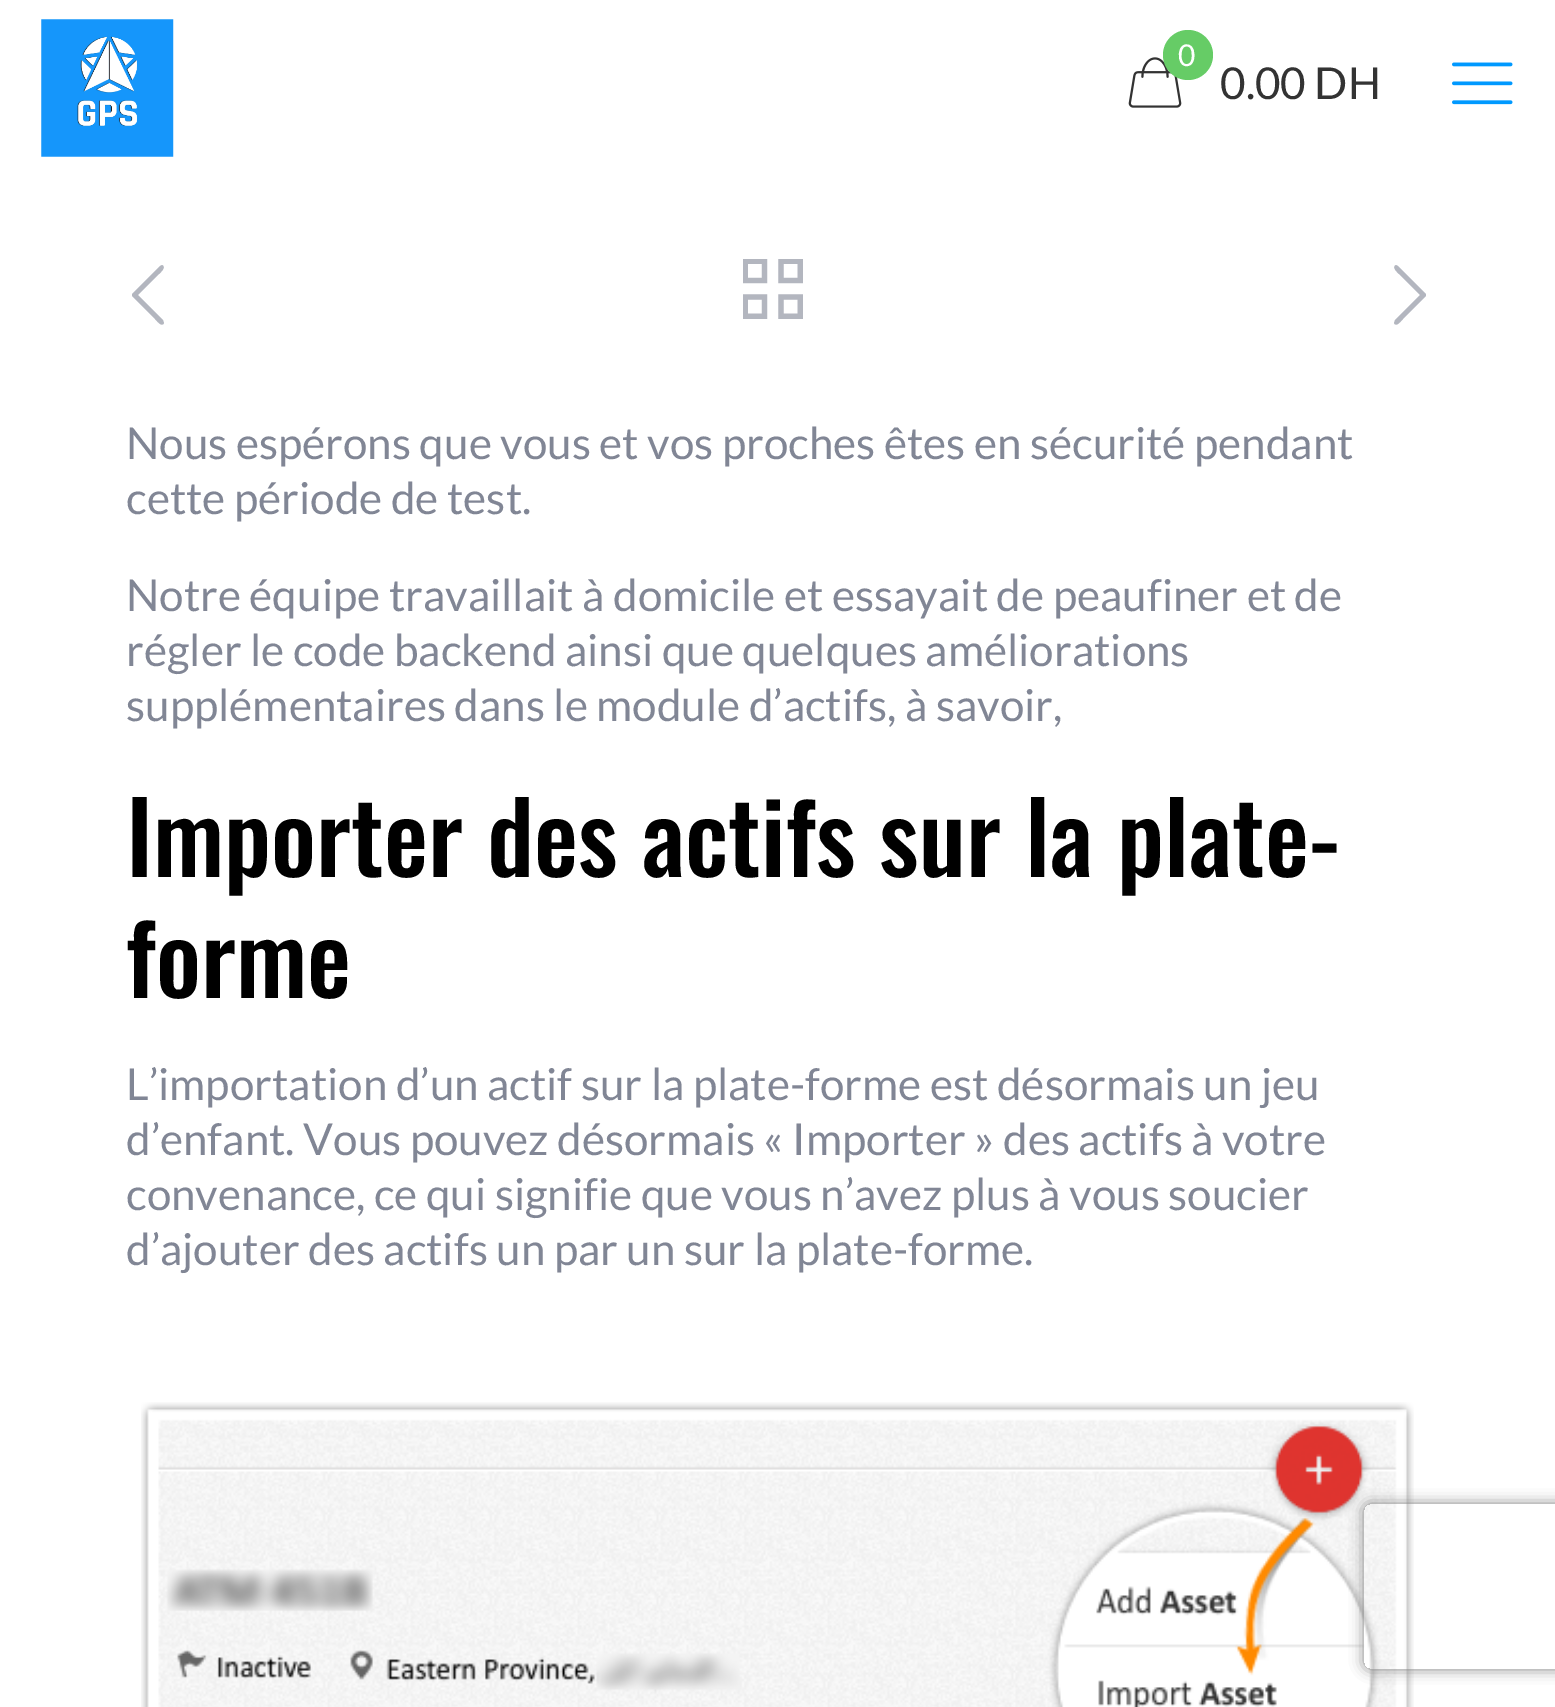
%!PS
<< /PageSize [1555 1707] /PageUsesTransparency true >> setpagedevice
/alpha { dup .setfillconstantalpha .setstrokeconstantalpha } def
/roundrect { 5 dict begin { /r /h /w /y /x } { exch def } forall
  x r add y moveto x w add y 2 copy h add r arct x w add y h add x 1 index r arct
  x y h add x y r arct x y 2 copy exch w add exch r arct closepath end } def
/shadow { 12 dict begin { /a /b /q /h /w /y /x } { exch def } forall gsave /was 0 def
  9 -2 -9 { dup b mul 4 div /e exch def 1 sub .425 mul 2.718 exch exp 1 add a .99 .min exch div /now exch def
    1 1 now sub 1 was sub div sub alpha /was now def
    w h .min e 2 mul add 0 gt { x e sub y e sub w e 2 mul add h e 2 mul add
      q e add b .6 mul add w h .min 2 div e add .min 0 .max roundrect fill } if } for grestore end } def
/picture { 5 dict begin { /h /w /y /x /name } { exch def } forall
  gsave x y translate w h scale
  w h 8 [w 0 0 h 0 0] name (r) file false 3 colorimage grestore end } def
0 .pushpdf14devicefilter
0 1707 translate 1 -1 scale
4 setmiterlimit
1 setgray
0 0 1555 1707 rectfill
(img1.rgb) 41 19 133 138 picture
(img2.rgb) 1452 62 61 43 picture
(img3.rgb) 1128 57 54 51 picture
0.4 0.8 0.4 setrgbcolor
newpath 1188 55 25 0 360 arc closepath fill
/Lato-Regular [30 0 0 -30 0 0] selectfont
1 setgray
1178 66 moveto (0) show
/Lato-Regular [44 0 0 -44 0 0] selectfont
0.2 setgray
1220 99 moveto (0.00 DH) show
0.702 0.714 0.749 setrgbcolor
newpath 163 320 moveto 164 323 lineto 162 328 156 320 155 319 curveto 132 296 lineto 132 294 lineto 160 266 lineto 162 265 lineto 167 267 160 273 159 274 curveto 138 295 lineto closepath fill
(img4.rgb) 743 259 60 60 picture
newpath 1395 320 moveto 1420 295 lineto 1399 274 lineto 1398 273 1391 267 1396 265 curveto 1398 266 lineto 1426 294 lineto 1426 296 lineto 1403 319 lineto 1402 320 1396 328 1394 323 curveto closepath fill
0.506 0.525 0.584 setrgbcolor
126 459 moveto (Nous espérons que vous et vos proches êtes en sécurité pendant) show
126 514 moveto (cette période de test.) show
126 611 moveto (Notre équipe travaillait à domicile et essayait de peaufiner et de) show
126 666 moveto (régler le code backend ainsi que quelques améliorations) show
126 721 moveto (supplémentaires dans le module d’actifs, à savoir,) show
/Oswald-Medium [99 0 0 -99 0 0] selectfont
0 setgray
126 877 moveto (Importer des actifs sur la plate-) show
126 998 moveto (forme) show
/Lato-Regular [44 0 0 -44 0 0] selectfont
0.506 0.525 0.584 setrgbcolor
126 1100 moveto (L’importation d’un actif sur la plate-forme est désormais un jeu) show
126 1155 moveto (d’enfant. Vous pouvez désormais « Importer » des actifs à votre) show
126 1210 moveto (convenance, ce qui signifie que vous n’avez plus à vous soucier) show
126 1265 moveto (d’ajouter des actifs un par un sur la plate-forme.) show
(img5.rgb) 141 1402 1273 305 picture
gsave
newpath 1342 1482 moveto 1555 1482 lineto 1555 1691 lineto 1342 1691 lineto closepath 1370 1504 moveto 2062 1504 lineto 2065.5 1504 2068 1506.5 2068 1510 curveto 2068 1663 lineto 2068 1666.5 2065.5 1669 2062 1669 curveto 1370 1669 lineto 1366.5 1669 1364 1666.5 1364 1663 curveto 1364 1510 lineto 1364 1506.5 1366.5 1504 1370 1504 curveto closepath eoclip newpath
0.502 setgray
1364 1504 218 165 6 7 1 shadow
grestore
.poppdf14devicefilter showpage
